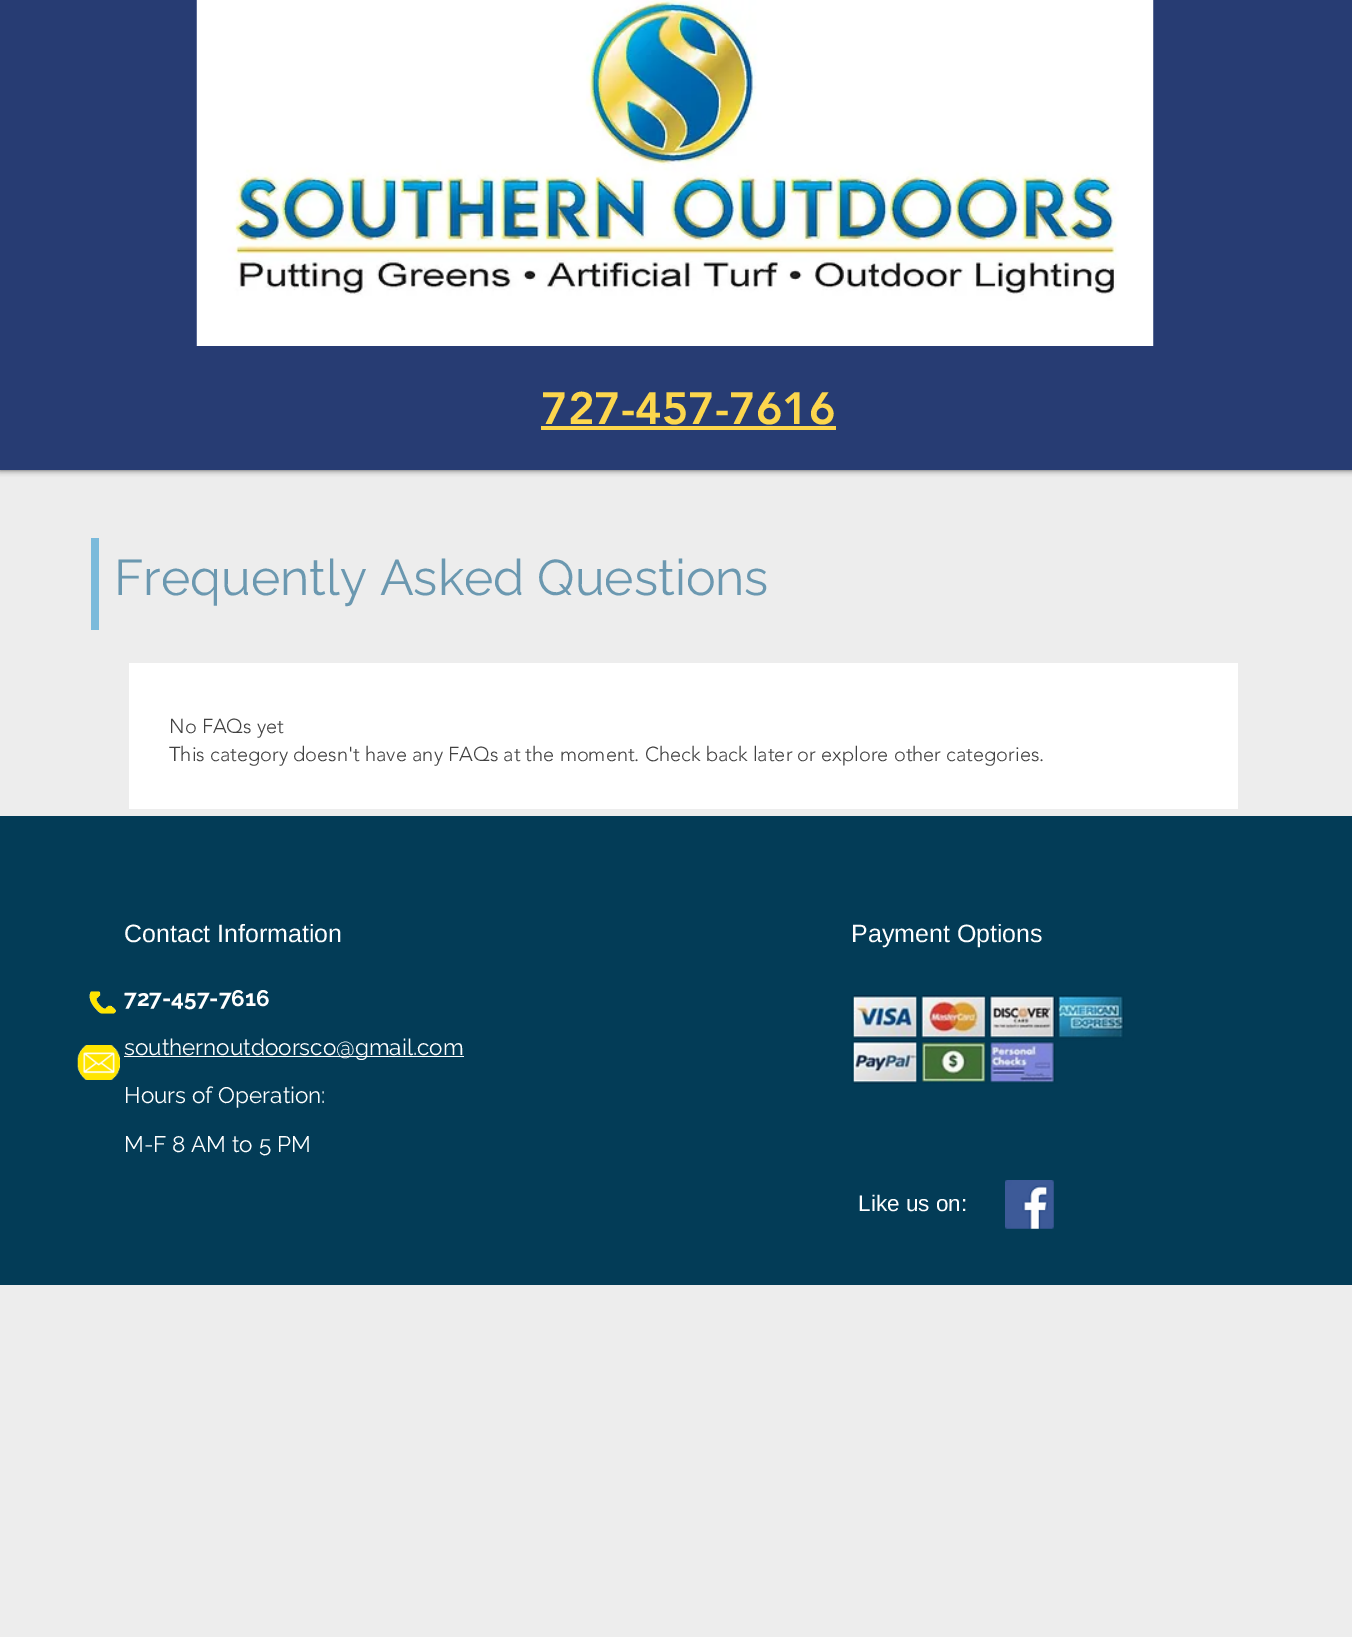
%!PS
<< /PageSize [1352 1637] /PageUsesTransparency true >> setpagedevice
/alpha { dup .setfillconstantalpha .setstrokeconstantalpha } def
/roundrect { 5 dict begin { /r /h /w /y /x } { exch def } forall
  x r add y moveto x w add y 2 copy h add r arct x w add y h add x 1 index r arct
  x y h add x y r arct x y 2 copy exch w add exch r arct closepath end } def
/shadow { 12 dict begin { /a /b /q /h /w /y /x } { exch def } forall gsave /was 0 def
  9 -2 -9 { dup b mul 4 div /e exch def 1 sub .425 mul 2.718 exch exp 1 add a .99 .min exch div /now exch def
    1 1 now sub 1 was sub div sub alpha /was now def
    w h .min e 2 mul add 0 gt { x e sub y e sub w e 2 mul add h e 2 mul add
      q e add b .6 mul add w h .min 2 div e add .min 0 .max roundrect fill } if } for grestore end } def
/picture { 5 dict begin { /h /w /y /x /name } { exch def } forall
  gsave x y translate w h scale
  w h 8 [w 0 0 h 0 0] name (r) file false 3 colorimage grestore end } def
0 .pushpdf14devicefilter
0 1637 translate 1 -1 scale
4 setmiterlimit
0.929 setgray
0 0 1352 1637 rectfill
0 setgray
0 0 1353 470 0 3 0.7 shadow
0.153 0.235 0.451 setrgbcolor
0 0 1352 470 rectfill
(img1.rgb) 196 0 958 346 picture
/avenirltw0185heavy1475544-Black [45 0 0 -45 0 0] selectfont
0.988 0.839 0.302 setrgbcolor
541 424 moveto (727-457-7616) show
541 426 295 4 rectfill
0.482 0.729 0.859 setrgbcolor
91 538 8 92 rectfill
/Raleway-Regular [50 0 0 -50 0 0] selectfont
0.42 0.596 0.69 setrgbcolor
114 595 moveto (Frequently Asked Questions) show
1 setgray
129 663 1109 146 rectfill
/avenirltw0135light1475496-Light [20 0 0 -20 0 0] selectfont
0.259 setgray
169 733 moveto (No FAQs yet) show
169 761 moveto (This category doesn't have any FAQs at the moment. Check back later or explore other categories.) show
0.012 0.235 0.341 setrgbcolor
0 816 1352 469 rectfill
/LiberationSans-Regular [25 0 0 -25 0 0] selectfont
1 setgray
124 942 moveto (Contact Information) show
851 942 moveto (Payment Options) show
(img2.rgb) 89 991 27 23 picture
/Raleway-Bold [22.5 0 0 -22.5 0 0] selectfont
124 1006 moveto (727-457-7616) show
124 1056 340 1 rectfill
/Raleway-Regular [22.5 0 0 -22.5 0 0] selectfont
124 1055 moveto (southernoutdoorsco@gmail.com) show
124 1103 moveto (Hours of Operation:) show
124 1152 moveto (M-F 8 AM to 5 PM) show
(img3.rgb) 851 995 273 89 picture
(img4.rgb) 77 1045 43 35 picture
/LiberationSans-Regular [22.5 0 0 -22.5 0 0] selectfont
858 1211 moveto (Like us on:) show
(img5.rgb) 1005 1180 49 49 picture
.poppdf14devicefilter showpage
